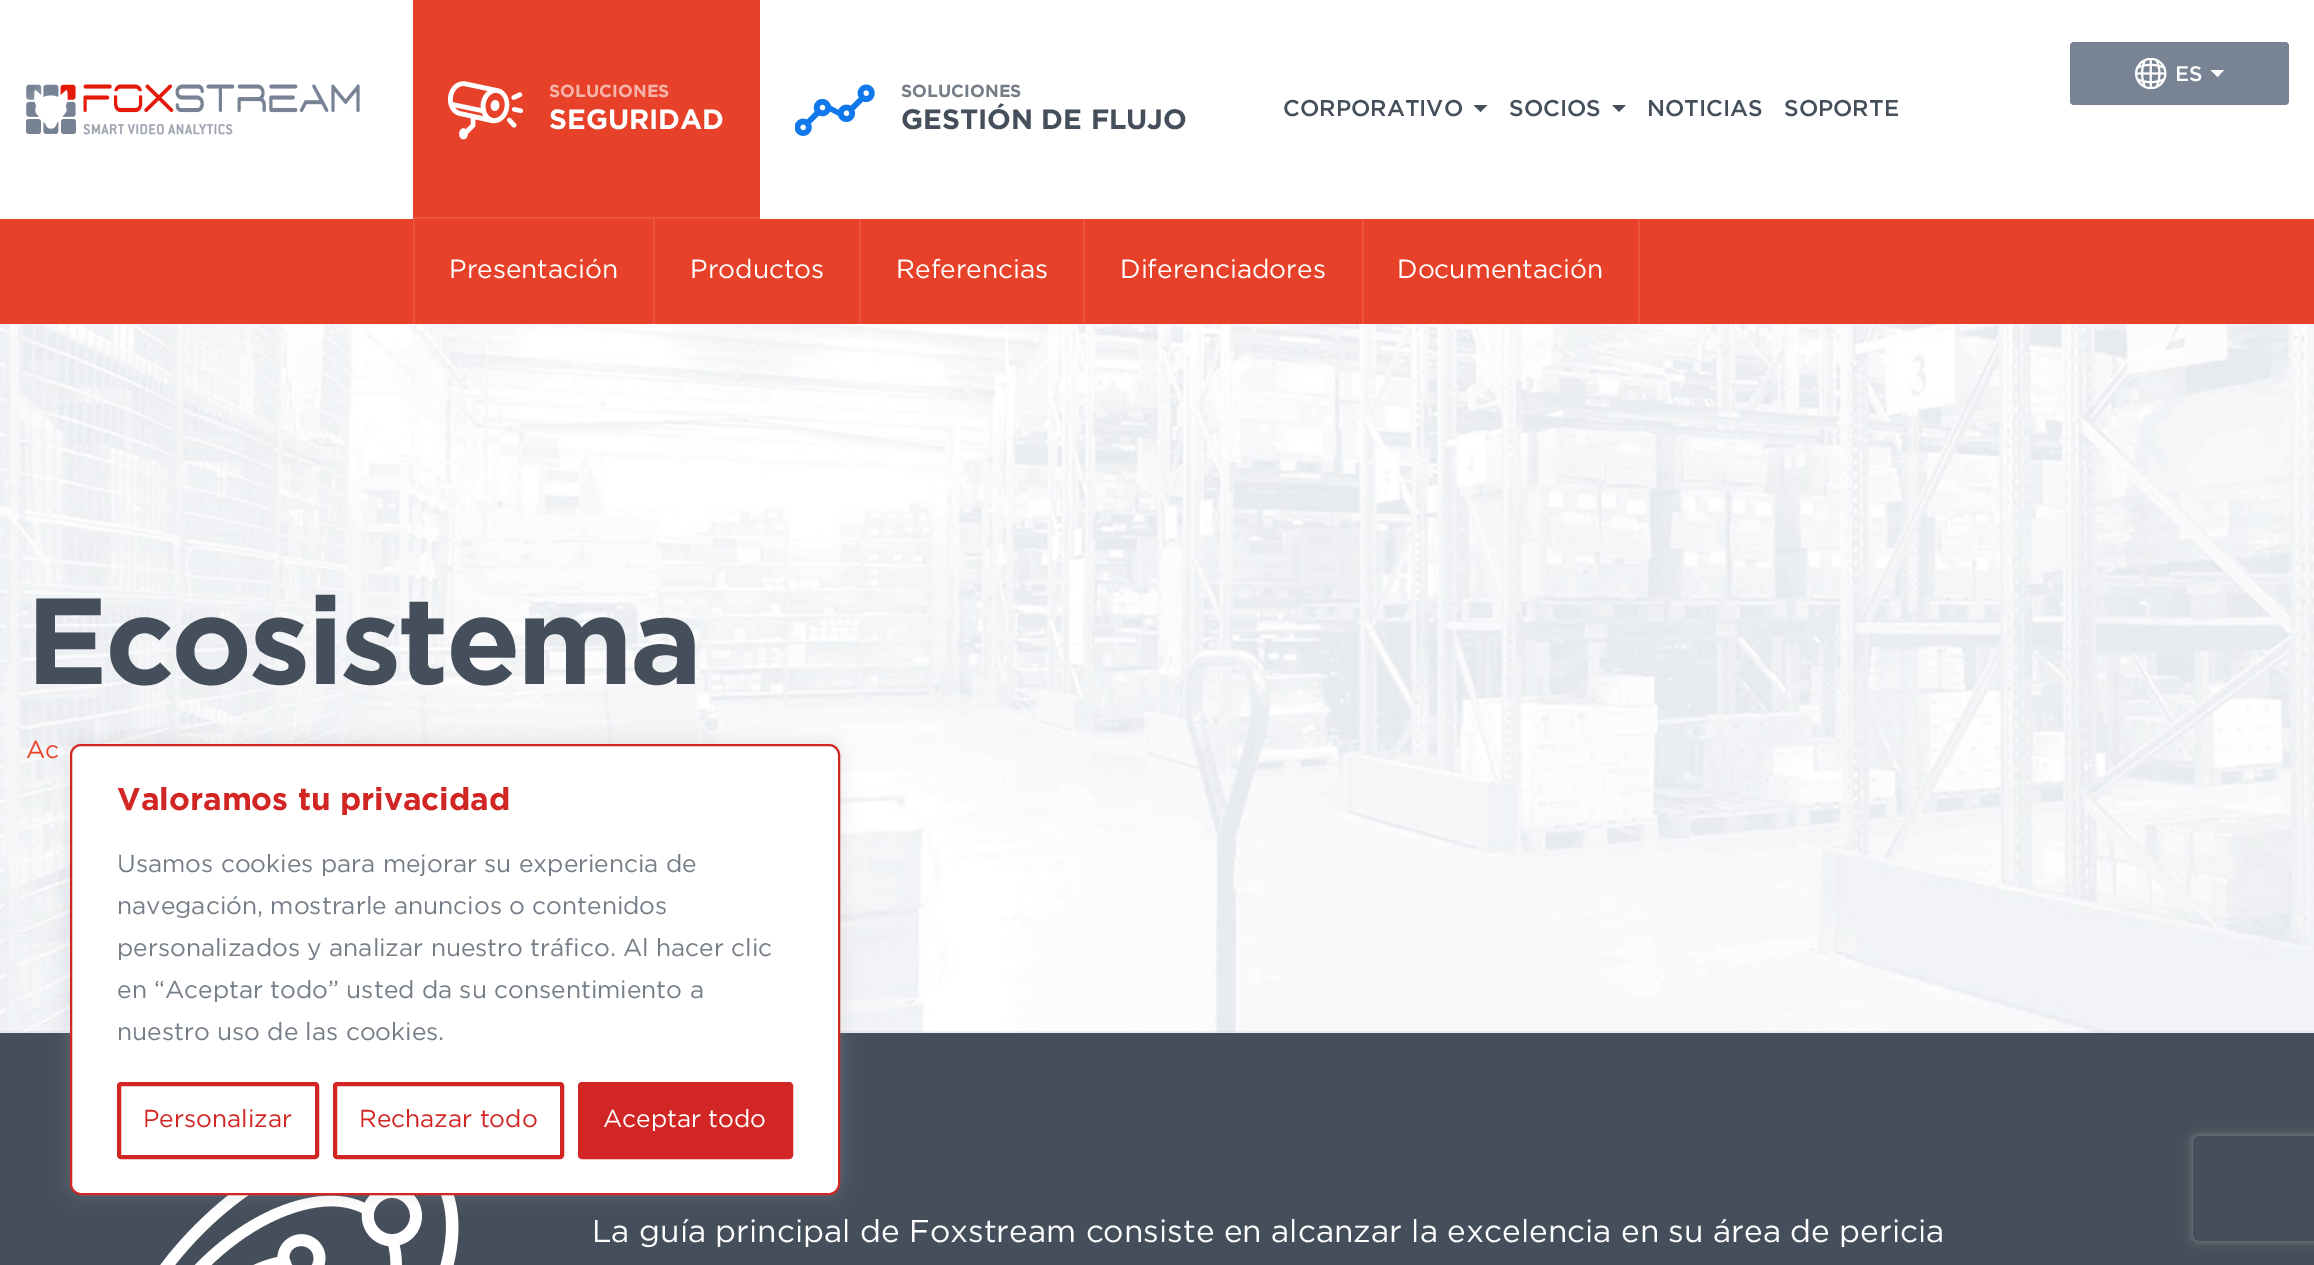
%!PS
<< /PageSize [2314 1265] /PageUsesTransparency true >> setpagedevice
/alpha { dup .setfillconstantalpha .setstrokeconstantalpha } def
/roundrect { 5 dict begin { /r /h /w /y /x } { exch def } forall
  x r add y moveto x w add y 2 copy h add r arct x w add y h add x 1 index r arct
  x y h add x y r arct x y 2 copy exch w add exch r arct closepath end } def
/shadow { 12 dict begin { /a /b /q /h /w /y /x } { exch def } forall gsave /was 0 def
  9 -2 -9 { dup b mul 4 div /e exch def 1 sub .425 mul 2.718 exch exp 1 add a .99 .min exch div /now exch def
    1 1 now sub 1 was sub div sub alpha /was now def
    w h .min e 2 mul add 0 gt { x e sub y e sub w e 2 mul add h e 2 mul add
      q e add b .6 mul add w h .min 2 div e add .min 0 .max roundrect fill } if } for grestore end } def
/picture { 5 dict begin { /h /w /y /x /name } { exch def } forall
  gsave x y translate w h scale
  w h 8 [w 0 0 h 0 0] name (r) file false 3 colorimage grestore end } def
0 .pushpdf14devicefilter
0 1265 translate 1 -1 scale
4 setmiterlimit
0.271 0.31 0.361 setrgbcolor
0 0 2314 1265 rectfill
1 setgray
0 0 2314 219 rectfill
0.471 0.518 0.58 setrgbcolor
2070 42 219 63 4 roundrect fill
(img1.rgb) 2135 58 32 31 picture
/Gotham-Medium [21 0 0 -21 0 0] selectfont
1 setgray
2175 81 moveto (ES) show
newpath 2224 70 moveto 2217.5 77 lineto 2210.5 70 lineto closepath fill
(img2.rgb) 26 84 334 51 picture
0.91 0.255 0.161 setrgbcolor
413 0 347 217 rectfill
0.918 0.329 0.243 setrgbcolor
413 217 347 2 rectfill
(img3.rgb) 448 81 75 59 picture
/Gotham-Bold [17.5 0 0 -17.5 0 0] selectfont
0.965 0.702 0.663 setrgbcolor
549 97 moveto (SOLUCIONES) show
/Gotham-Bold [28 0 0 -28 0 0] selectfont
1 setgray
549 129 moveto (SEGURIDAD) show
(img4.rgb) 795 84 80 52 picture
/Gotham-Bold [17.5 0 0 -17.5 0 0] selectfont
0.459 0.49 0.525 setrgbcolor
901 97 moveto (SOLUCIONES) show
/Gotham-Bold [28 0 0 -28 0 0] selectfont
0.271 0.31 0.361 setrgbcolor
901 129 moveto (GESTIÓN DE FLUJO) show
/Gotham-Medium [22.75 0 0 -22.75 0 0] selectfont
1283 116 moveto (CORPORATIVO) show
newpath 1473.5 105 moveto 1487.5 105 lineto 1480.5 112 lineto closepath fill
1509 116 moveto (SOCIOS) show
newpath 1612 105 moveto 1626 105 lineto 1619 112 lineto closepath fill
1647 116 moveto (NOTICIAS) show
1784 116 moveto (SOPORTE) show
0.91 0.255 0.161 setrgbcolor
0 219 2314 105 rectfill
0.918 0.329 0.243 setrgbcolor
653 219 2 105 rectfill
413 219 2 105 rectfill
/Gotham-Regular [26.25 0 0 -26.25 0 0] selectfont
1 setgray
449 278 moveto (Presentación) show
0.918 0.329 0.243 setrgbcolor
859 219 2 105 rectfill
1 setgray
690 278 moveto (Productos) show
0.918 0.329 0.243 setrgbcolor
1083 219 2 105 rectfill
1 setgray
896 278 moveto (Referencias) show
0.918 0.329 0.243 setrgbcolor
1362 219 2 105 rectfill
1 setgray
1120 278 moveto (Diferenciadores) show
0.918 0.329 0.243 setrgbcolor
1638 219 2 105 rectfill
1 setgray
1397 278 moveto (Documentación) show
0.973 setgray
0 1032 2314 1 rectfill
(img5.rgb) 0 324 2314 709 picture
0.1 alpha
0.518 0.573 0.647 setrgbcolor
0 1031 2314 2 rectfill
/Gotham-Bold [122.5 0 0 -122.5 0 0] selectfont
1 alpha
0.271 0.31 0.361 setrgbcolor
26 684 moveto -3.5 0 (Ecosistema) ashow
/Gotham-Regular [24.5 0 0 -24.5 0 0] selectfont
0.91 0.255 0.161 setrgbcolor
26 758 moveto (Ac) show
(img6.rgb) 160 1195 299 70 picture
/Gotham-Regular [31.5 0 0 -31.5 0 0] selectfont
1 setgray
592 1242 moveto (La guía principal de Foxstream consiste en alcanzar la excelencia en su área de pericia) show
0.675 0.671 0.671 setrgbcolor
70 742 770 452 11 9 0.3 shadow
1 setgray
71 745 768 449 10 roundrect gsave fill grestore
0.82 0.149 0.141 setrgbcolor
2 setlinewidth
stroke
/Gotham-Bold [31.5 0 0 -31.5 0 0] selectfont
117 810 moveto (Valoramos tu privacidad) show
/Gotham-Regular [24.5 0 0 -24.5 0 0] selectfont
0.459 0.49 0.525 setrgbcolor
117 872 moveto (Usamos cookies para mejorar su experiencia de) show
117 914 moveto (navegación, mostrarle anuncios o contenidos) show
117 956 moveto (personalizados y analizar nuestro tráfico. Al hacer clic) show
117 998 moveto (en “Aceptar todo” usted da su consentimiento a) show
117 1040 moveto (nuestro uso de las cookies.) show
0.82 0.149 0.141 setrgbcolor
4 setlinewidth
119 1084 198 73 2 roundrect stroke
143 1127 moveto (Personalizar) show
335 1084 227 73 2 roundrect stroke
359 1127 moveto (Rechazar todo) show
580 1084 211 73 2 roundrect gsave fill grestore
stroke
1 setgray
603 1127 moveto (Aceptar todo) show
gsave
newpath 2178 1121 moveto 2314 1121 lineto 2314 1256 lineto 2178 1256 lineto closepath 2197 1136 moveto 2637 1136 lineto 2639 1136 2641 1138 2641 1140 curveto 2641 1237 lineto 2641 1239 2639 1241 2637 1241 curveto 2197 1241 lineto 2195 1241 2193 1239 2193 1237 curveto 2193 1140 lineto 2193 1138 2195 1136 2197 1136 curveto closepath eoclip newpath
0.502 setgray
2193 1136 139 105 4 4.5 1 shadow
grestore
.poppdf14devicefilter showpage
